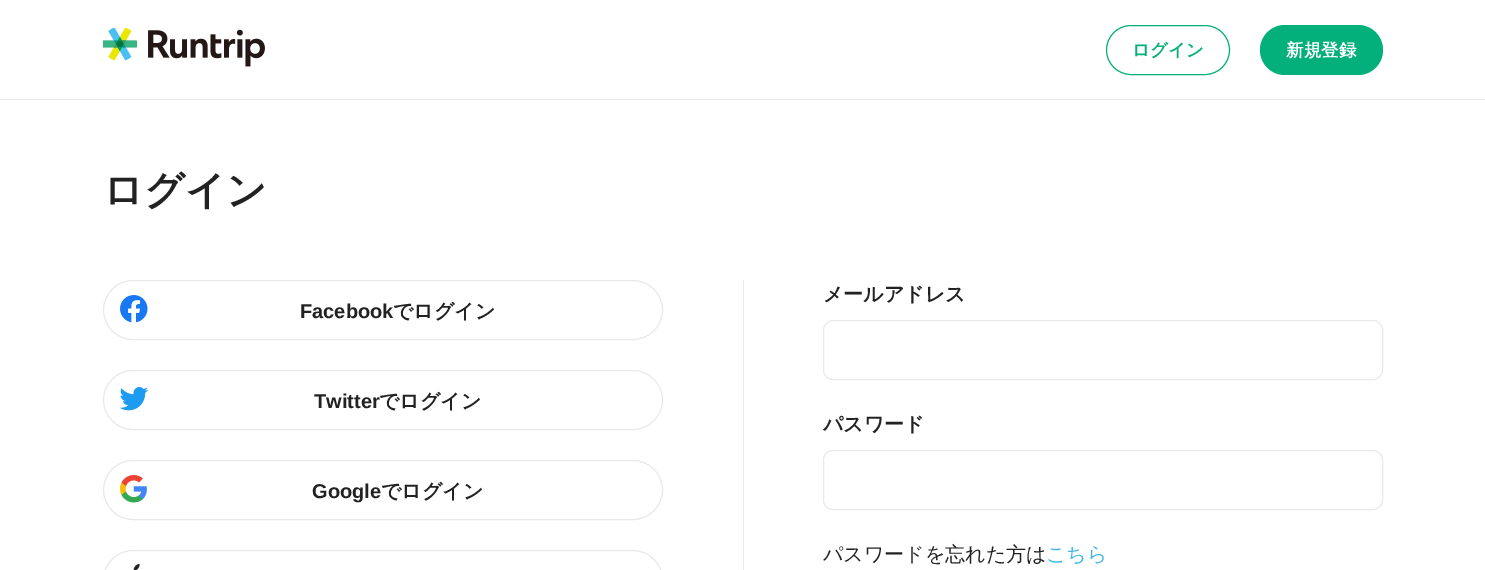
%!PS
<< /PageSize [1485 570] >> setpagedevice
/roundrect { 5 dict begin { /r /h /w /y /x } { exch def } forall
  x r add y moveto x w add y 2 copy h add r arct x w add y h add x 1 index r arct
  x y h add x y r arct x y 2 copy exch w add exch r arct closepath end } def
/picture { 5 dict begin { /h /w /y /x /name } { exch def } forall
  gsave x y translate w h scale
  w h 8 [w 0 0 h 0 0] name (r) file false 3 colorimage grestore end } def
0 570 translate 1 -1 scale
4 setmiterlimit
1 setgray
0 0 1485 570 rectfill
0.914 setgray
0 99 1485 1 rectfill
(img1.rgb) 103 28 162 39 picture
0.012 0.686 0.478 setrgbcolor
1106.5 25.5 123 49 24.5 roundrect stroke
/WenQuanYiZenHei-Bold [17.5 0 0 -17.5 0 0] selectfont
1132 56 moveto (ログイン) show
1260 25 123 50 25 roundrect fill
1 setgray
1286 56 moveto (新規登録) show
/WenQuanYiZenHei-Bold [40 0 0 -40 0 0] selectfont
0.133 setgray
103 204 moveto (ログイン) show
0.914 setgray
103.5 280.5 559 59 29.5 roundrect stroke
(img2.rgb) 120 295 28 28 picture
/LiberationSans-Bold [20 0 0 -20 0 0] selectfont
0.133 setgray
300 318 moveto (Facebook) show
/WenQuanYiZenHei-Bold [20 0 0 -20 0 0] selectfont
393 318 moveto (でログイン) show
0.914 setgray
103.5 370.5 559 59 29.5 roundrect stroke
(img3.rgb) 119 387 29 24 picture
/LiberationSans-Bold [20 0 0 -20 0 0] selectfont
0.133 setgray
314 408 moveto (Twitter) show
/WenQuanYiZenHei-Bold [20 0 0 -20 0 0] selectfont
379 408 moveto (でログイン) show
0.914 setgray
103.5 460.5 559 59 29.5 roundrect stroke
(img4.rgb) 120 475 27 28 picture
/LiberationSans-Bold [20 0 0 -20 0 0] selectfont
0.133 setgray
312 498 moveto (Google) show
/WenQuanYiZenHei-Bold [20 0 0 -20 0 0] selectfont
381 498 moveto (でログイン) show
0.914 setgray
103.5 550.5 559 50 29.5 roundrect stroke
(img5.rgb) 133 564 7 6 picture
743 280 1 290 rectfill
0.133 setgray
823 301 moveto (メールアドレス) show
0.914 setgray
823.5 320.5 559 59 9.5 roundrect stroke
0.133 setgray
823 431 moveto (パスワード) show
0.914 setgray
823.5 450.5 559 59 9.5 roundrect stroke
/WenQuanYiZenHei-Medium [20 0 0 -20 0 0] selectfont
0.133 setgray
823 561 moveto (パスワードを忘れた方は) show
0.259 0.722 0.894 setrgbcolor
1046 561 moveto (こちら) show
showpage
